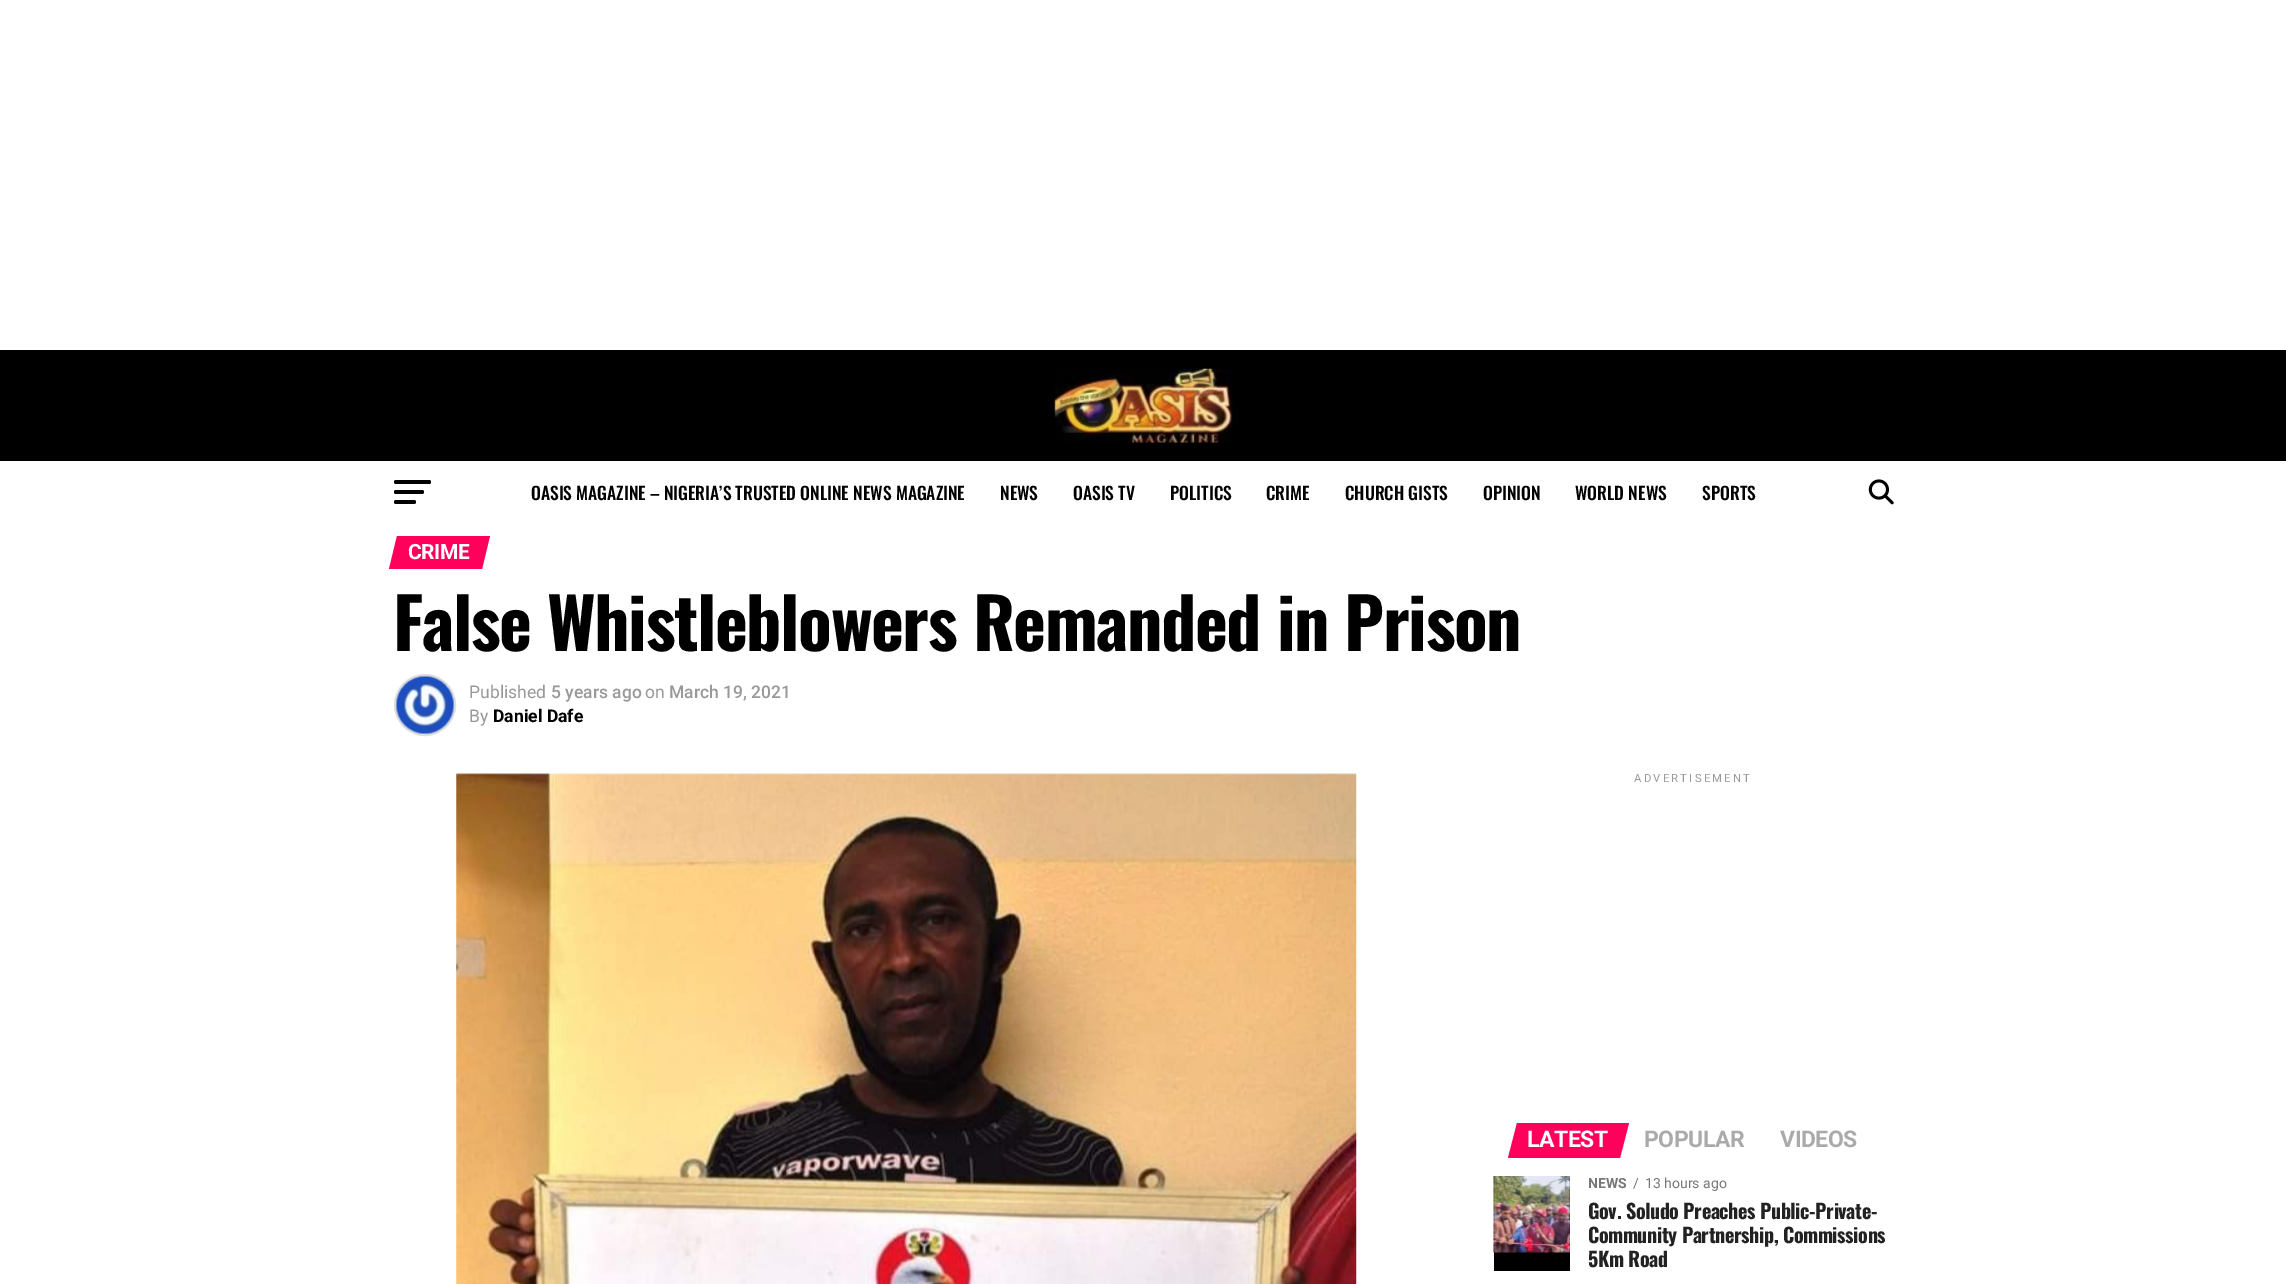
%!PS
<< /PageSize [2286 1284] >> setpagedevice
/roundrect { 5 dict begin { /r /h /w /y /x } { exch def } forall
  x r add y moveto x w add y 2 copy h add r arct x w add y h add x 1 index r arct
  x y h add x y r arct x y 2 copy exch w add exch r arct closepath end } def
/picture { 5 dict begin { /h /w /y /x /name } { exch def } forall
  gsave x y translate w h scale
  w h 8 [w 0 0 h 0 0] name (r) file false 3 colorimage grestore end } def
0 1284 translate 1 -1 scale
4 setmiterlimit
1 setgray
0 0 2286 1284 rectfill
0 setgray
0 350 2286 111 rectfill
(img1.rgb) 1054 368 179 75 picture
394 480 37 4 2 roundrect fill
394 490 30 4 2 roundrect fill
394 500 22 4 2 roundrect fill
/Oswald-Medium [17.5 0 0 -17.5 0 0] selectfont
531 500 moveto (OASIS MAGAZINE – NIGERIA’S TRUSTED ONLINE NEWS MAGAZINE) show
1000 500 moveto (NEWS) show
1073 500 moveto (OASIS TV) show
1170 500 moveto (POLITICS) show
1266 500 moveto (CRIME) show
1345 500 moveto (CHURCH GISTS) show
1483 500 moveto (OPINION) show
1575 500 moveto (WORLD NEWS) show
1702 500 moveto (SPORTS) show
(img2.rgb) 1868 479 26 26 picture
1 0 0.357 setrgbcolor
newpath 397 536 moveto 490 536 lineto 482 569 lineto 389 569 lineto closepath fill
/Roboto-Bold [21 0 0 -21 0 0] selectfont
1 setgray
408 559 moveto -0.5 0 (CRIME) ashow
/Oswald-Bold [70 0 0 -70 0 0] selectfont
0 setgray
393 651 moveto -1.4 0 (False Whistleblowers Remanded in Prison) ashow
0.867 setgray
3 setlinewidth
newpath 425 705 29.5 0 360 arc closepath stroke
(img3.rgb) 395 675 60 60 picture
/Roboto-Regular [17.5 0 0 -17.5 0 0] selectfont
0.6 setgray
469 698 moveto (Published) show
/Roboto-Medium [17.5 0 0 -17.5 0 0] selectfont
551 698 moveto (5 years ago) show
/Roboto-Regular [17.5 0 0 -17.5 0 0] selectfont
645 698 moveto (on) show
/Roboto-Medium [17.5 0 0 -17.5 0 0] selectfont
669 698 moveto (March 19, 2021) show
/Roboto-Regular [17.5 0 0 -17.5 0 0] selectfont
469 722 moveto (By) show
/Roboto-Bold [17.5 0 0 -17.5 0 0] selectfont
0 setgray
493 722 moveto (Daniel Dafe) show
(img4.rgb) 456 773 901 511 picture
/Roboto-Regular [11.25 0 0 -11.25 0 0] selectfont
0.6 setgray
1634 782 moveto 2.25 0 (ADVERTISEMENT) ashow
1 0 0.357 setrgbcolor
newpath 1517 1123 moveto 1629 1123 lineto 1620 1158 lineto 1508 1158 lineto closepath fill
/Roboto-Bold [23 0 0 -23 0 0] selectfont
1 setgray
1527 1147 moveto -0.5 0 (LATEST) ashow
0.667 setgray
1644 1147 moveto -0.5 0 (POPULAR) ashow
1780 1147 moveto -0.5 0 (VIDEOS) ashow
0 setgray
1494 1176 76 95 rectfill
(img5.rgb) 1493 1176 77 77 picture
/Roboto-Bold [14 0 0 -14 0 0] selectfont
0.467 setgray
1588 1188 moveto (NEWS) show
/Roboto-Regular [14 0 0 -14 0 0] selectfont
1633 1188 moveto (/) show
1645 1188 moveto (13 hours ago) show
/Oswald-Bold [20 0 0 -20 0 0] selectfont
0.133 setgray
1588 1219 moveto -0.4 0 (Gov. Soludo Preaches Public-Private-) ashow
1588 1243 moveto -0.4 0 (Community Partnership, Commissions) ashow
1588 1267 moveto -0.4 0 (5Km Road) ashow
showpage
